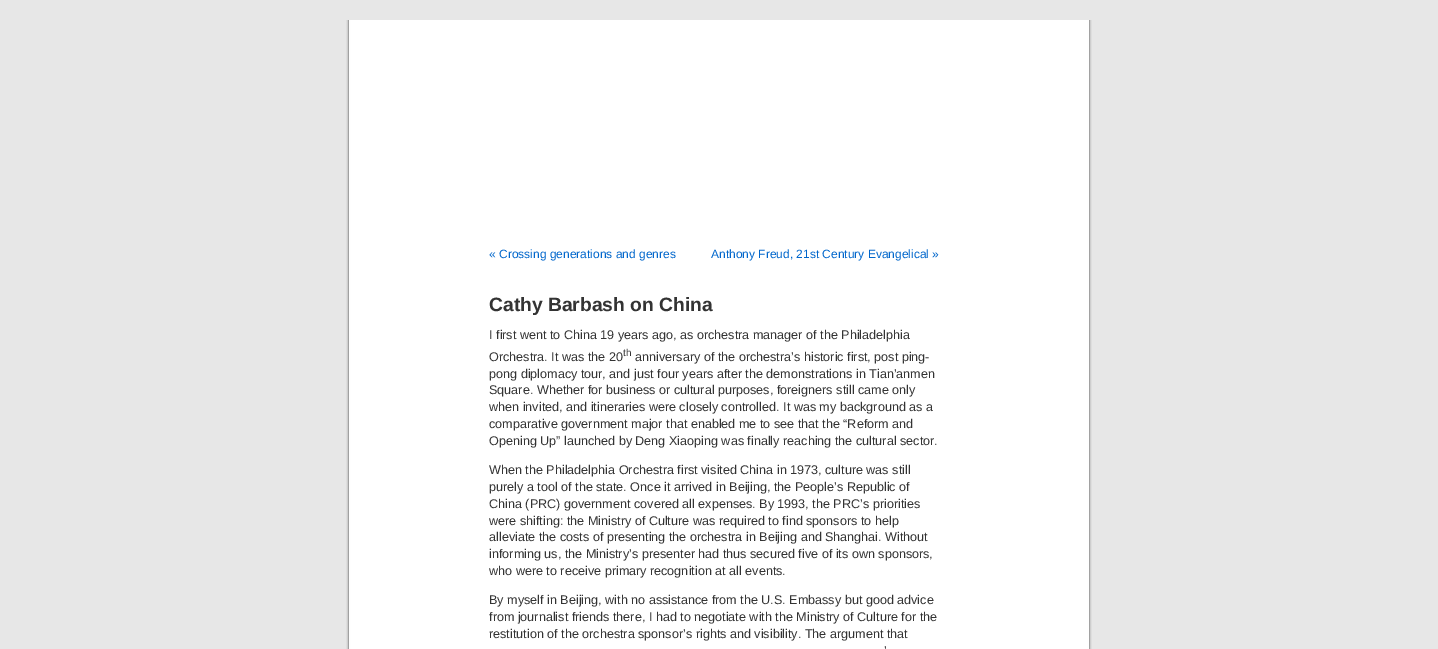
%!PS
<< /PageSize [1438 649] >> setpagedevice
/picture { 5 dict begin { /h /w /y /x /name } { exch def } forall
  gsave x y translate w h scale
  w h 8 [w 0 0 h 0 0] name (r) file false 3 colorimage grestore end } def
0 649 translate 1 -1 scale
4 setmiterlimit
0.906 setgray
0 0 1438 649 rectfill
(img1.rgb) 346 20 746 629 picture
/LiberationSans-Regular [12 0 0 -12 0 0] selectfont
0 0.4 0.8 setrgbcolor
489 258 moveto (« Crossing generations and genres) show
711 258 moveto (Anthony Freud, 21st Century Evangelical ») show
/LiberationSans-Bold [19.25 0 0 -19.25 0 0] selectfont
0.2 setgray
489 311 moveto (Cathy Barbash on China) show
/LiberationSans-Regular [12.6 0 0 -12.6 0 0] selectfont
489 339 moveto (I first went to China 19 years ago, as orchestra manager of the Philadelphia) show
489 361 moveto (Orchestra. It was the 20) show
/LiberationSans-Regular [10 0 0 -10 0 0] selectfont
623 356 moveto (th) show
/LiberationSans-Regular [12.6 0 0 -12.6 0 0] selectfont
635 361 moveto (anniversary of the orchestra’s historic first, post ping-) show
489 378 moveto (pong diplomacy tour, and just four years after the demonstrations in Tian’anmen) show
489 394 moveto (Square. Whether for business or cultural purposes, foreigners still came only) show
489 411 moveto (when invited, and itineraries were closely controlled. It was my background as a) show
489 428 moveto (comparative government major that enabled me to see that the “Reform and) show
489 445 moveto (Opening Up” launched by Deng Xiaoping was finally reaching the cultural sector.) show
489 474 moveto (When the Philadelphia Orchestra first visited China in 1973, culture was still) show
489 491 moveto (purely a tool of the state. Once it arrived in Beijing, the People’s Republic of) show
489 508 moveto (China \(PRC\) government covered all expenses. By 1993, the PRC’s priorities) show
489 525 moveto (were shifting: the Ministry of Culture was required to find sponsors to help) show
489 541 moveto (alleviate the costs of presenting the orchestra in Beijing and Shanghai. Without) show
489 558 moveto (informing us, the Ministry’s presenter had thus secured five of its own sponsors,) show
489 575 moveto (who were to receive primary recognition at all events.) show
489 604 moveto (By myself in Beijing, with no assistance from the U.S. Embassy but good advice) show
489 621 moveto (from journalist friends there, I had to negotiate with the Ministry of Culture for the) show
489 638 moveto (restitution of the orchestra sponsor’s rights and visibility. The argument that) show
884 655 moveto (’) show
showpage
